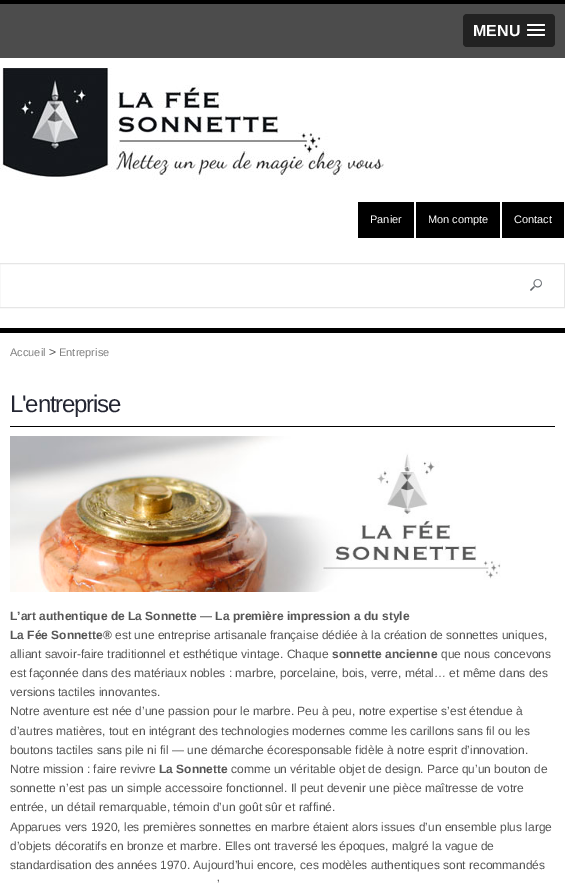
%!PS
<< /PageSize [565 884] >> setpagedevice
/roundrect { 5 dict begin { /r /h /w /y /x } { exch def } forall
  x r add y moveto x w add y 2 copy h add r arct x w add y h add x 1 index r arct
  x y h add x y r arct x y 2 copy exch w add exch r arct closepath end } def
/picture { 5 dict begin { /h /w /y /x /name } { exch def } forall
  gsave x y translate w h scale
  w h 8 [w 0 0 h 0 0] name (r) file false 3 colorimage grestore end } def
0 884 translate 1 -1 scale
4 setmiterlimit
1 setgray
0 0 565 884 rectfill
0 setgray
0 0 565 4 rectfill
0.298 setgray
0 4 565 54 rectfill
0.133 setgray
463 14 92 33 4 roundrect fill
/LiberationSans-Bold [16 0 0 -16 0 0] selectfont
1 setgray
473 36 moveto (MENU) show
0.102 setgray
newpath 527 25.5 moveto 526 27.5 530.5 27 530.5 27 curveto 541.5 27 lineto 541.5 27 546 27.5 545 25.5 curveto 544 26.5 537.5 26 536 26 curveto 534.5 26 528 26.5 527 25.5 curveto closepath fill
1 setgray
527 24 18 2 1 roundrect fill
0.102 setgray
newpath 527 30.5 moveto 526 32.5 530.5 32 530.5 32 curveto 541.5 32 lineto 541.5 32 546 32.5 545 30.5 curveto 544 31.5 537.5 31 536 31 curveto 534.5 31 528 31.5 527 30.5 curveto closepath fill
1 setgray
527 29 18 2 1 roundrect fill
0.102 setgray
newpath 527 35.5 moveto 526 37.5 530.5 37 530.5 37 curveto 541.5 37 lineto 541.5 37 546 37.5 545 35.5 curveto 544 36.5 537.5 36 536 36 curveto 534.5 36 528 36.5 527 35.5 curveto closepath fill
1 setgray
527 34 18 2 1 roundrect fill
(img1.rgb) 0 68 384 112 picture
0 setgray
358 202 56 36 rectfill
/LiberationSans-Regular [11 0 0 -11 0 0] selectfont
1 setgray
370 223 moveto (Panier) show
0 setgray
416 202 84 36 rectfill
1 setgray
428 223 moveto (Mon compte) show
0 setgray
502 202 62 36 rectfill
1 setgray
514 223 moveto (Contact) show
0.902 setgray
-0.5 263.5 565 44 rectstroke
(img2.rgb) 530 279 12 12 picture
0 setgray
0 328 565 5 rectfill
0.498 setgray
10 356 moveto (Accueil) show
/LiberationSans-Regular [12 0 0 -12 0 0] selectfont
0.333 setgray
49 356 moveto (>) show
/LiberationSans-Regular [11 0 0 -11 0 0] selectfont
0.498 setgray
59 356 moveto (Entreprise) show
0 setgray
10 426 545 1 rectfill
/LiberationSans-Regular [24 0 0 -24 0 0] selectfont
0.141 0.149 0.196 setrgbcolor
10 412 moveto -1.25 0 (L'entreprise) ashow
(img3.rgb) 10 436 491 156 picture
/LiberationSans-Bold [12 0 0 -12 0 0] selectfont
0.333 setgray
10 620 moveto (L’art authentique de La Sonnette — La première impression a du style) show
10 639 moveto (La Fée Sonnette®) show
/LiberationSans-Regular [12 0 0 -12 0 0] selectfont
115 639 moveto (est une entreprise artisanale française dédiée à la création de sonnettes uniques,) show
10 658 moveto (alliant savoir-faire traditionnel et esthétique vintage. Chaque) show
/LiberationSans-Bold [12 0 0 -12 0 0] selectfont
332 658 moveto (sonnette ancienne) show
/LiberationSans-Regular [12 0 0 -12 0 0] selectfont
441 658 moveto (que nous concevons) show
10 677 moveto (est façonnée dans des matériaux nobles : marbre, porcelaine, bois, verre, métal… et même dans des) show
10 696 moveto (versions tactiles innovantes.) show
10 715 moveto (Notre aventure est née d’une passion pour le marbre. Peu à peu, notre expertise s’est étendue à) show
10 735 moveto (d’autres matières, tout en intégrant des technologies modernes comme les carillons sans fil ou les) show
10 754 moveto (boutons tactiles sans pile ni fil — une démarche écoresponsable fidèle à notre esprit d’innovation.) show
10 773 moveto (Notre mission : faire revivre) show
/LiberationSans-Bold [12 0 0 -12 0 0] selectfont
159 773 moveto (La Sonnette) show
/LiberationSans-Regular [12 0 0 -12 0 0] selectfont
231 773 moveto (comme un véritable objet de design. Parce qu’un bouton de) show
10 792 moveto (sonnette n’est pas un simple accessoire fonctionnel. Il peut devenir une pièce maîtresse de votre) show
10 811 moveto (entrée, un détail remarquable, témoin d’un goût sûr et raffiné.) show
10 831 moveto (Apparues vers 1920, les premières sonnettes en marbre étaient alors issues d’un ensemble plus large) show
10 850 moveto (d’objets décoratifs en bronze et marbre. Elles ont traversé les époques, malgré la vague de) show
10 869 moveto (standardisation des années 1970. Aujourd’hui encore, ces modèles authentiques sont recommandés) show
217 888 moveto (’) show
showpage
